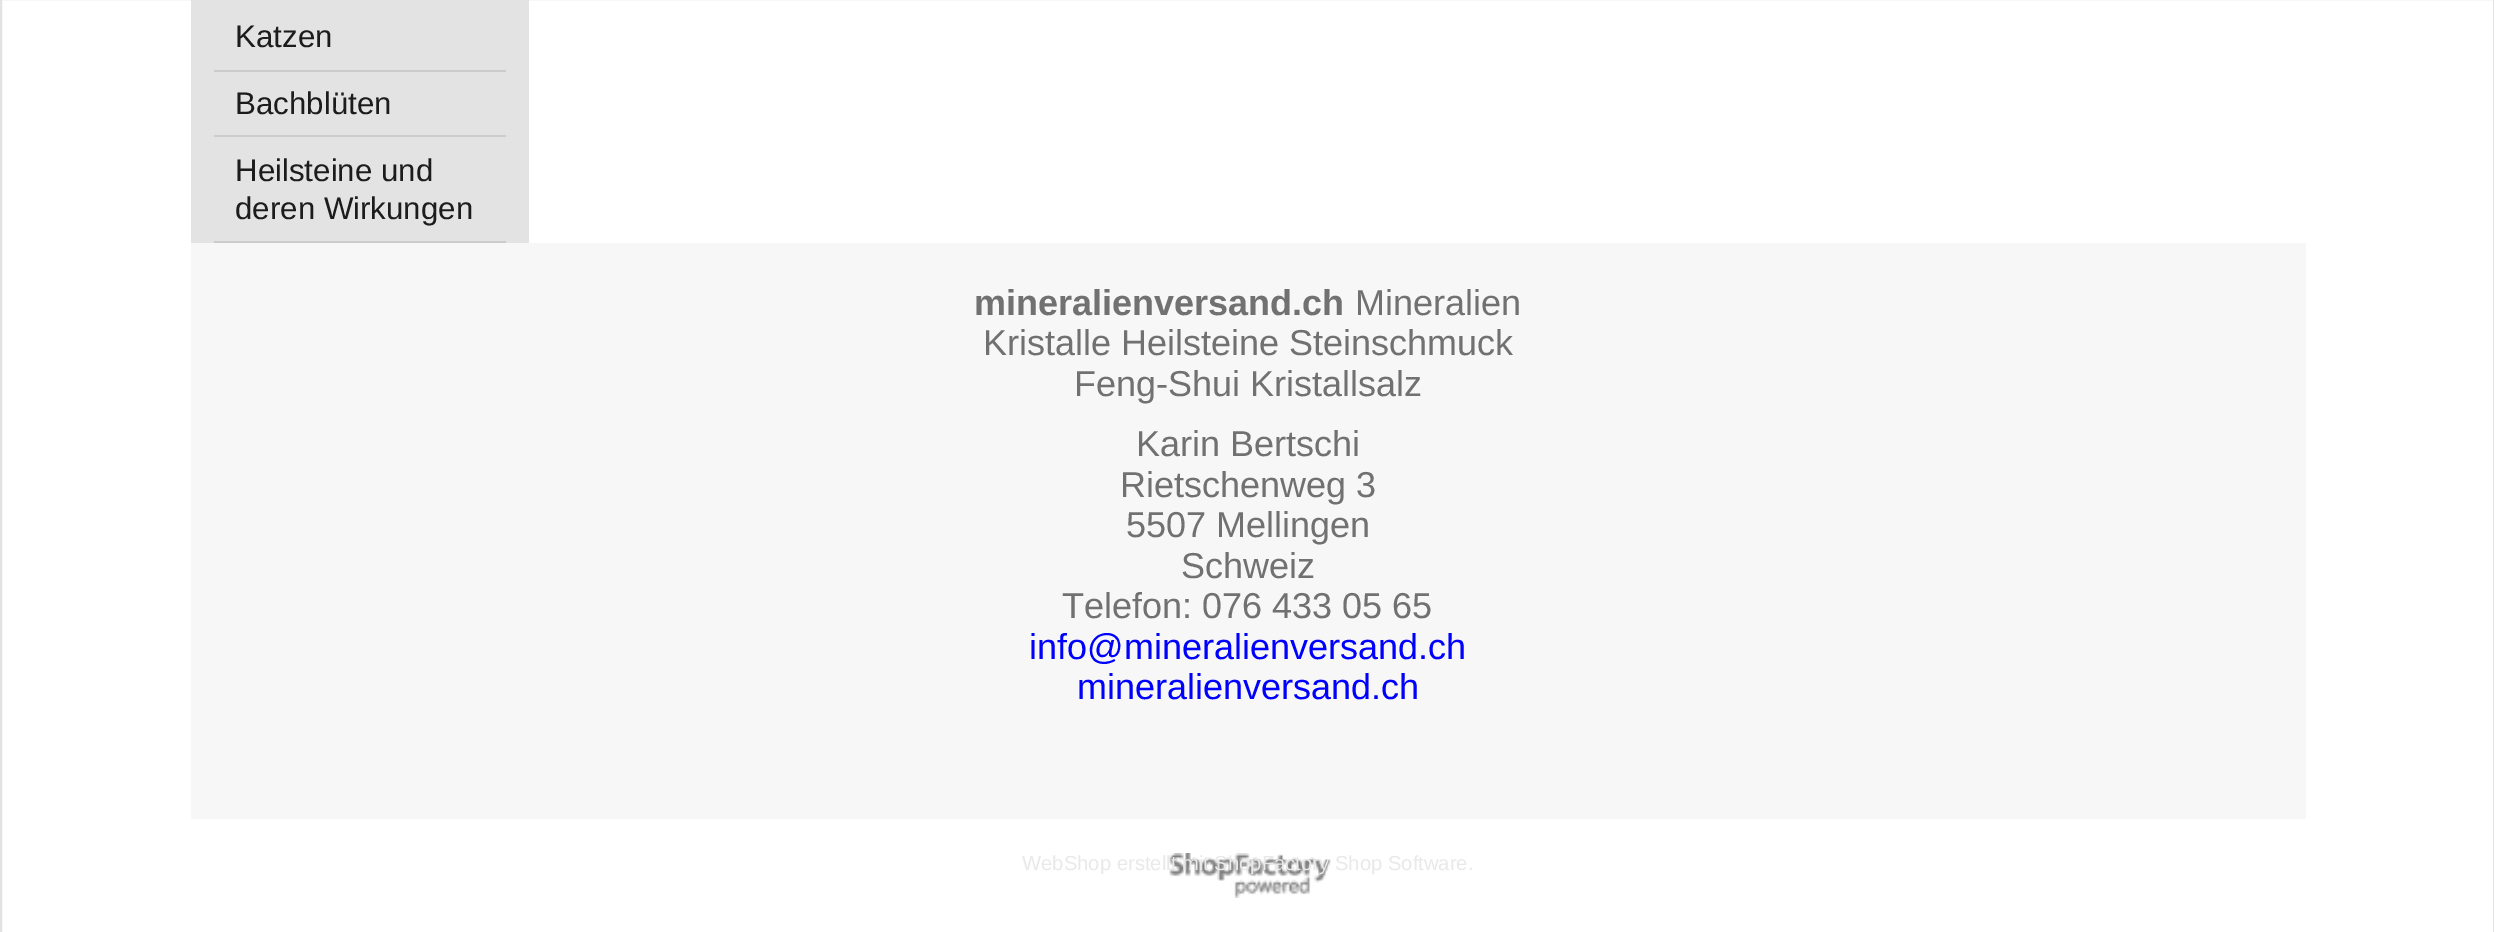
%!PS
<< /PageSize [2494 932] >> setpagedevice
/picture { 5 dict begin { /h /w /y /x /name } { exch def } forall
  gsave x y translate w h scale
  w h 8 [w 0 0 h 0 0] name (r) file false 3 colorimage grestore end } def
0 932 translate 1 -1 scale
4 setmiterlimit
1 setgray
0 0 2494 932 rectfill
0.89 setgray
2 setlinewidth
1 -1 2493 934 rectstroke
191 0 338 243 rectfill
0.8 setgray
214 70 292 2 rectfill
/LiberationSans-Regular [31.25 0 0 -31.25 0 0] selectfont
0.11 setgray
235 47 moveto (Katzen) show
0.8 setgray
214 135 292 2 rectfill
0.11 setgray
235 114 moveto (Bachblüten) show
0.8 setgray
214 241 292 2 rectfill
0.11 setgray
235 181 moveto (Heilsteine und) show
235 219 moveto (deren Wirkungen) show
0.969 setgray
191 243 2115 576 rectfill
/LiberationSans-Bold [36 0 0 -36 0 0] selectfont
0.443 setgray
974 315 moveto (mineralienversand.ch) show
/LiberationSans-Regular [36 0 0 -36 0 0] selectfont
1355 315 moveto (Mineralien) show
983 355 moveto (Kristalle Heilsteine Steinschmuck) show
1074 396 moveto (Feng-Shui Kristallsalz) show
1136 456 moveto (Karin Bertschi) show
1120 497 moveto (Rietschenweg 3) show
1126 537 moveto (5507 Mellingen) show
1181 578 moveto (Schweiz) show
1062 618 moveto (Telefon: 076 433 05 65) show
0 0 1 setrgbcolor
1029 659 moveto (info@mineralienversand.ch) show
1077 699 moveto (mineralienversand.ch) show
(img1.rgb) 1169 853 162 45 picture
/LiberationSans-Regular [20.25 0 0 -20.25 0 0] selectfont
0.914 setgray
1022 870 moveto (WebShop erstellt mit ShopFactory Shop Software.) show
showpage
